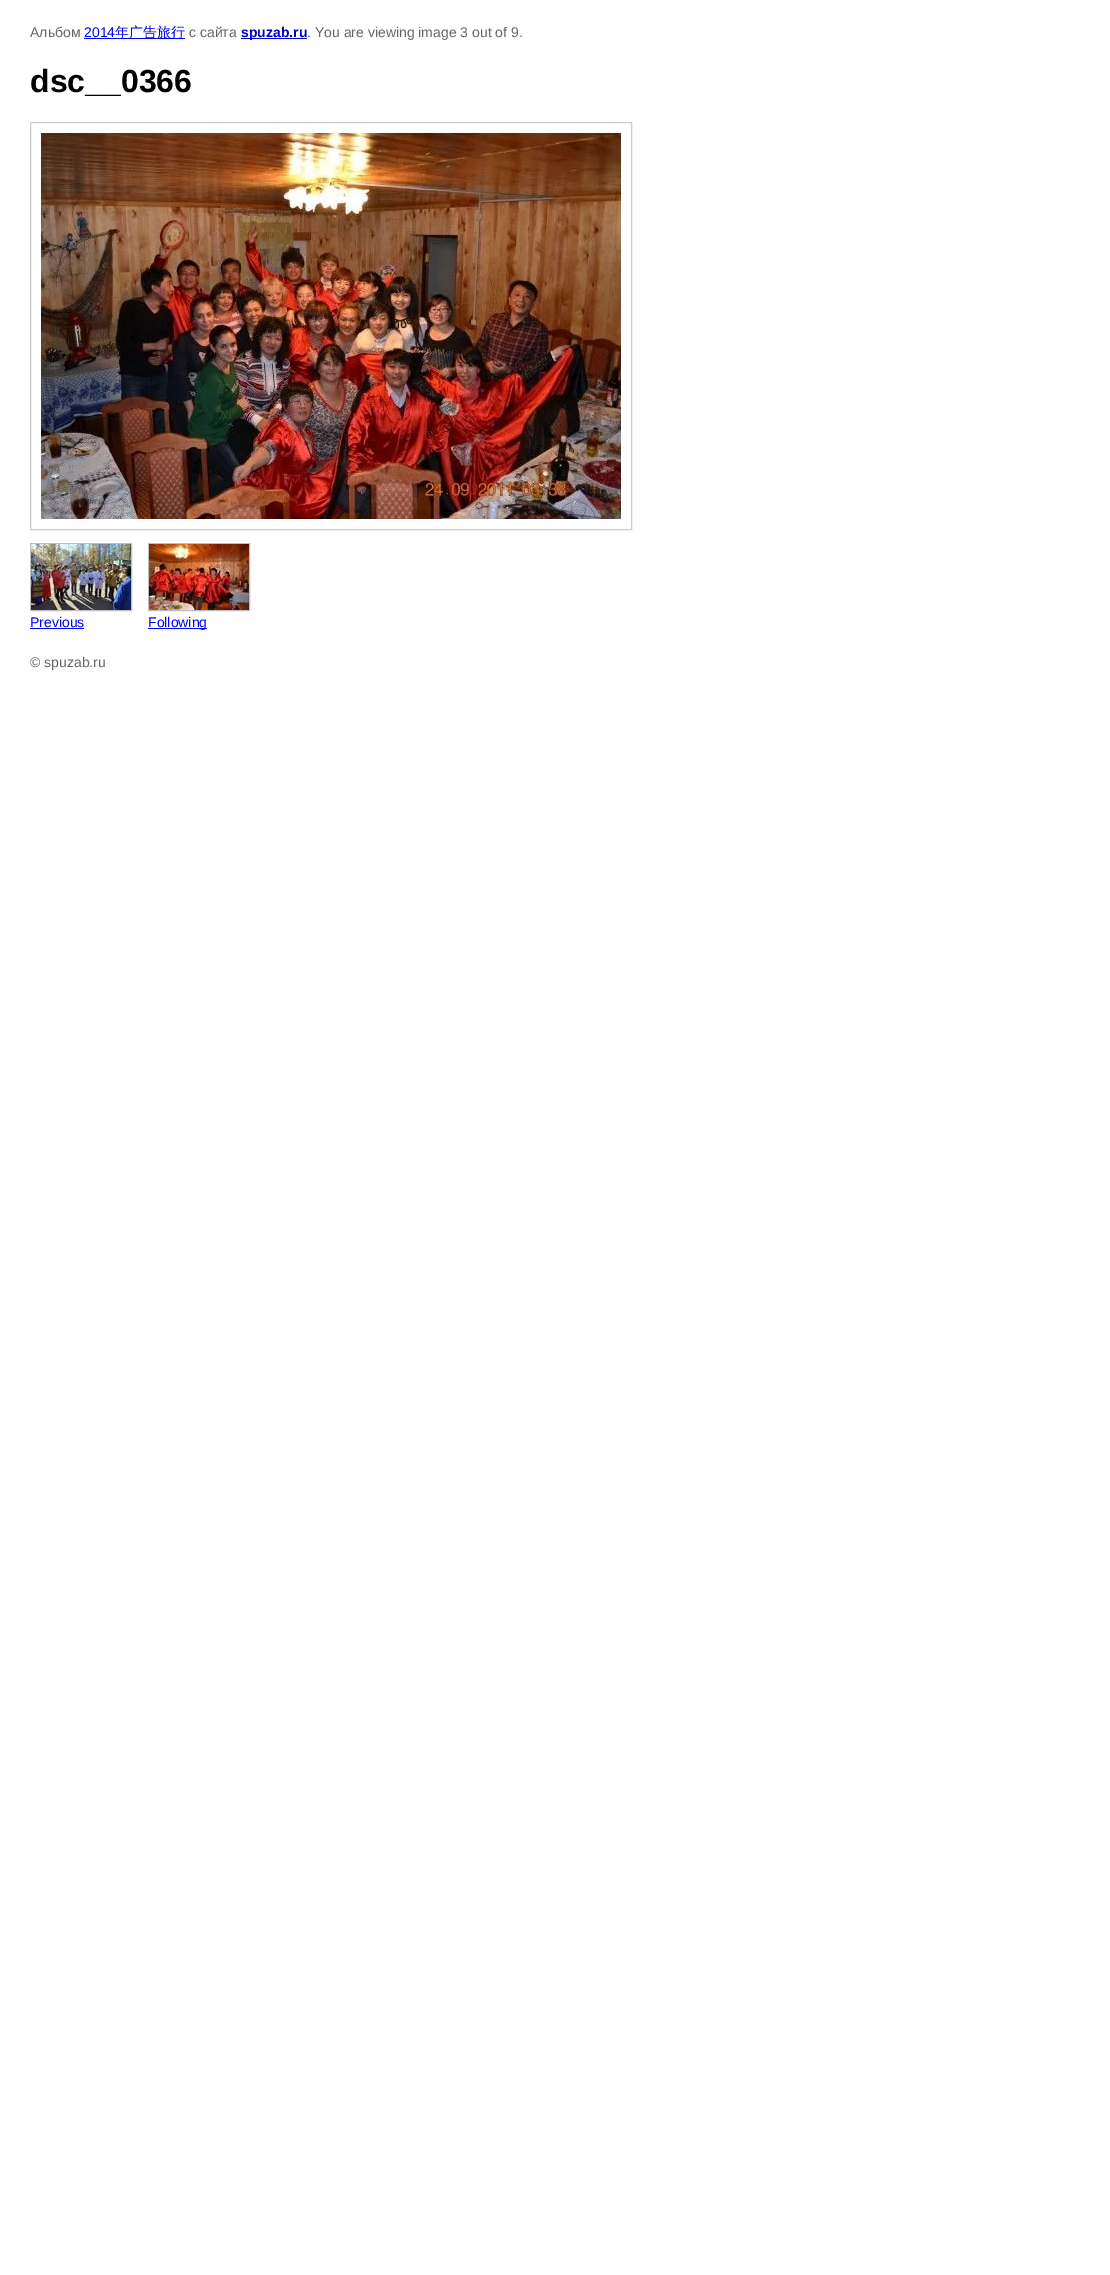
%!PS
<< /PageSize [1110 2275] >> setpagedevice
/picture { 5 dict begin { /h /w /y /x /name } { exch def } forall
  gsave x y translate w h scale
  w h 8 [w 0 0 h 0 0] name (r) file false 3 colorimage grestore end } def
0 2275 translate 1 -1 scale
4 setmiterlimit
1 setgray
0 0 1110 2275 rectfill
/LiberationSans-Regular [14 0 0 -14 0 0] selectfont
0.4 setgray
30 37 moveto (Альбом) show
0 0 1 setrgbcolor
84 37 moveto (2014) show
84 38 101 1 rectfill
/WenQuanYiZenHei-Medium [14 0 0 -14 0 0] selectfont
115 37 moveto (年广告旅行) show
/LiberationSans-Regular [14 0 0 -14 0 0] selectfont
0.4 setgray
189 37 moveto (с сайта) show
0 0 0.8 setrgbcolor
241 38 66 1 rectfill
/LiberationSans-Bold [14 0 0 -14 0 0] selectfont
241 37 moveto (spuzab.ru) show
/LiberationSans-Regular [14 0 0 -14 0 0] selectfont
0.4 setgray
307 37 moveto (. You are viewing image 3 out of 9.) show
/LiberationSans-Bold [32 0 0 -32 0 0] selectfont
0 setgray
30 92 moveto (dsc__0366) show
0.8 setgray
30.5 122.5 601 407 rectstroke
(img1.rgb) 41 133 580 386 picture
0.753 setgray
30.5 543.5 101 67 rectstroke
(img2.rgb) 31 544 100 66 picture
/LiberationSans-Regular [14 0 0 -14 0 0] selectfont
0 0 1 setrgbcolor
30 627 moveto (Previous) show
30 628 54 1 rectfill
0.753 setgray
148.5 543.5 101 67 rectstroke
(img3.rgb) 149 544 100 66 picture
0 0 1 setrgbcolor
148 628 59 1 rectfill
148 627 moveto (Following) show
0.4 setgray
30 667 moveto (© spuzab.ru) show
showpage
